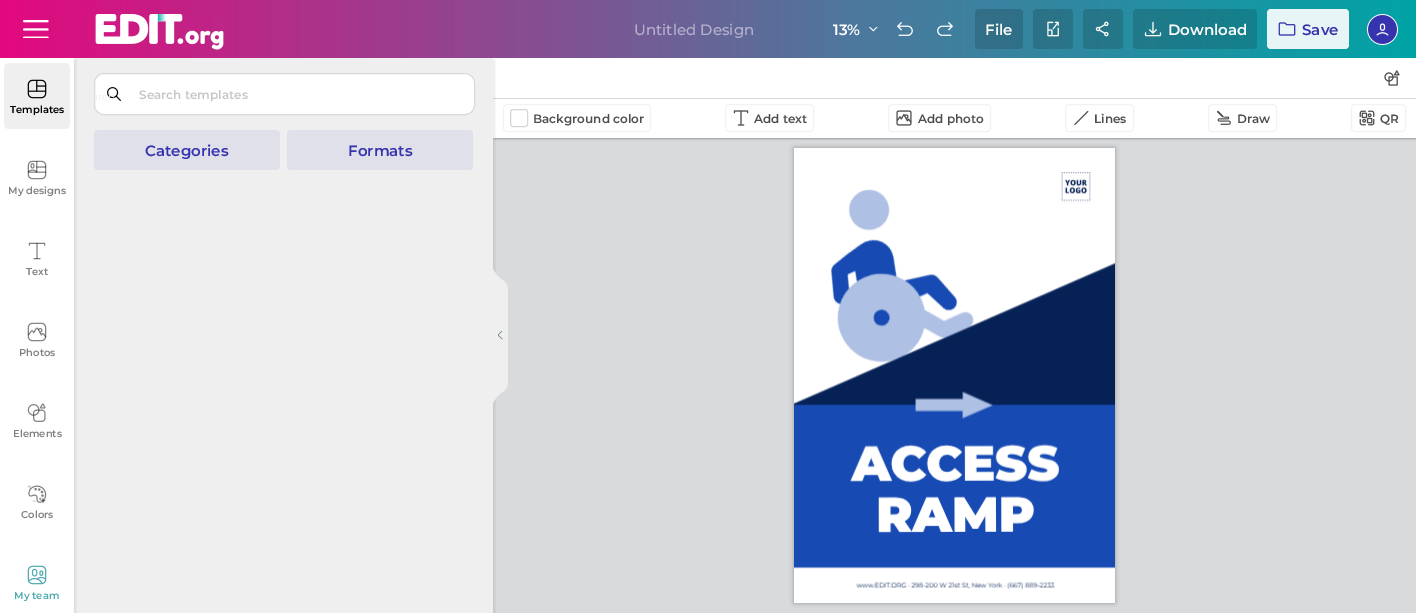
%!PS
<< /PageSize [1416 613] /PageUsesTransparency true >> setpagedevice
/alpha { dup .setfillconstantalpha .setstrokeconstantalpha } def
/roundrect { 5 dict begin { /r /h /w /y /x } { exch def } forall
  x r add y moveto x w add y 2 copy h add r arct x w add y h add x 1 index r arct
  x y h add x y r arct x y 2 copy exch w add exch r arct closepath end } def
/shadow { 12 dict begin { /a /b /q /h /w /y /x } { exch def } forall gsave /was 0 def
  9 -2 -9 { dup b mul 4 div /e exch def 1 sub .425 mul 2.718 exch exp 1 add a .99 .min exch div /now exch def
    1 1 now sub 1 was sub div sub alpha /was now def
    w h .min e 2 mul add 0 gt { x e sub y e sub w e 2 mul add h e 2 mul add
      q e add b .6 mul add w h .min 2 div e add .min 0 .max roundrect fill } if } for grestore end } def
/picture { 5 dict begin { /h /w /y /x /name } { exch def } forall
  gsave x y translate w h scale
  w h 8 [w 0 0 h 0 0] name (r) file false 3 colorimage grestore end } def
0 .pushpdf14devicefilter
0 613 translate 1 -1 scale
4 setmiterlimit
1 setgray
0 0 1416 613 rectfill
0.847 0.855 0.859 setrgbcolor
493 138 923 475 rectfill
0 setgray
494 59 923 80 0 1 0.3 shadow
1 setgray
493 58 923 80 rectfill
0.851 setgray
493 98 923 1 rectfill
gsave
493 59 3 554 rectclip
0 setgray
0 61 493 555 0 3 0.16 shadow
grestore
0.937 setgray
newpath 501 393 moveto 508 389 508 384 508 378 curveto 508 294 lineto 508 288 508 283 501 279 curveto 494 273 492 267 492 267 curveto 492 405 lineto 492 405 494 399 501 393 curveto fill
74 58 419 555 rectfill
gsave
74 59 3 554 rectclip
0 setgray
0 61 74 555 0 3 0.16 shadow
grestore
gsave newpath 0 0 moveto 1416 0 lineto 1416 58 lineto 0 58 lineto closepath clip newpath
<< /ShadingType 2 /ColorSpace /DeviceRGB /Coords [0 29 1416 29] /Extend [true true] /Function << /FunctionType 3 /Domain [0 1] /Functions [<< /FunctionType 2 /Domain [0 1] /C0 [0.89 0.035 0.494] /C1 [0.306 0.467 0.616] /N 1 >> << /FunctionType 2 /Domain [0 1] /C0 [0.306 0.467 0.616] /C1 [0 0.643 0.651] /N 1 >>] /Bounds [0.6] /Encode [0 1 0 1] >> >> shfill grestore
(img1.rgb) 23 20 26 18 picture
(img2.rgb) 95 14 129 36 picture
/Montserrat-Medium [15 0 0 -15 0 0] selectfont
0.706 0.694 0.796 setrgbcolor
634 35 moveto (Untitled Design) show
/Montserrat-SemiBold [15 0 0 -15 0 0] selectfont
1 setgray
833 35 moveto (13%) show
(img3.rgb) 869 27 9 5 picture
(img4.rgb) 897 22 16 14 picture
(img5.rgb) 937 22 16 14 picture
0.15 alpha
0 setgray
975 9 48 40 4 roundrect fill
1 alpha
1 setgray
985 35 moveto (File) show
0.15 alpha
0 setgray
1033 9 40 40 4 roundrect fill
1 alpha
(img6.rgb) 1047 21 12 16 picture
0.15 alpha
1083 9 40 40 4 roundrect fill
1 alpha
(img7.rgb) 1095 21 14 16 picture
0.15 alpha
1133 9 124 40 4 roundrect fill
1 alpha
(img8.rgb) 1144 21 18 16 picture
1 setgray
1168 35 moveto (Download) show
0.9 alpha
1267 9 82 40 4 roundrect fill
1 alpha
(img9.rgb) 1278 22 18 14 picture
0.208 0.2 0.678 setrgbcolor
1302 35 moveto (Save) show
(img10.rgb) 1367 14 31 31 picture
0.937 setgray
4 63 66 66 5 roundrect fill
(img11.rgb) 27 79 20 20 picture
1 setgray
94.5 73.5 380 41 9.5 roundrect gsave fill grestore
0.843 0.855 0.859 setrgbcolor
stroke
(img18.rgb) 107 87 14 14 picture
/Montserrat-Regular [10 0 0 -10 0 0] selectfont
0.922 setgray
92 100 moveto (arch) show
/Montserrat-SemiBold [10 0 0 -10 0 0] selectfont
0 setgray
10 113 moveto (Templates) show
(img12.rgb) 27 160 20 20 picture
0.502 setgray
8 194 moveto (My designs) show
(img13.rgb) 28 242 18 18 picture
26 275 moveto (Text) show
(img14.rgb) 27 322 20 20 picture
19 356 moveto (Photos) show
(img15.rgb) 27 403 19 19 picture
13 437 moveto (Elements) show
(img16.rgb) 27 485 20 19 picture
21 518 moveto (Colors) show
(img17.rgb) 27 565 20 20 picture
0.31 0.663 0.694 setrgbcolor
14 599 moveto (My team) show
/Montserrat-SemiBold [12 0 0 -12 0 0] selectfont
0.776 setgray
139 99 moveto (Search templates) show
0.878 0.878 0.918 setrgbcolor
94 130 186 40 4 roundrect fill
/Montserrat-SemiBold [15 0 0 -15 0 0] selectfont
0.208 0.2 0.678 setrgbcolor
145 156 moveto (Categories) show
0.878 0.878 0.918 setrgbcolor
287 130 186 40 4 roundrect fill
0.208 0.2 0.678 setrgbcolor
348 156 moveto (Formats) show
(img19.rgb) 498 331 5 9 picture
(img20.rgb) 1384 70 16 16 picture
0.949 setgray
503.5 104.5 147 27 3.5 roundrect stroke
0.839 0.831 0.831 setrgbcolor
510.5 109.5 17 17 2.5 roundrect stroke
/Montserrat-SemiBold [12 0 0 -12 0 0] selectfont
0.302 setgray
533 123 moveto (Background color) show
0.949 setgray
725.5 104.5 88 27 3.5 roundrect stroke
(img21.rgb) 733 110 16 16 picture
0.302 setgray
754 123 moveto (Add text) show
0.949 setgray
888.5 104.5 102 27 3.5 roundrect stroke
(img22.rgb) 896 110 16 16 picture
0.302 setgray
918 123 moveto (Add photo) show
0.949 setgray
1065.5 104.5 68 27 3.5 roundrect stroke
(img23.rgb) 1074 110 15 15 picture
0.302 setgray
1094 123 moveto (Lines) show
0.949 setgray
1208.5 104.5 68 27 3.5 roundrect stroke
(img24.rgb) 1217 110 14 15 picture
0.302 setgray
1237 123 moveto (Draw) show
0.949 setgray
1351.5 104.5 54 27 3.5 roundrect stroke
(img25.rgb) 1359 110 16 16 picture
0.302 setgray
1380 123 moveto (QR) show
0 setgray
794 148 321 455 0 2.5 0.3 shadow
1 setgray
794 148 321 455 rectfill
(img26.rgb) 794 172 321 418 picture
.poppdf14devicefilter showpage
